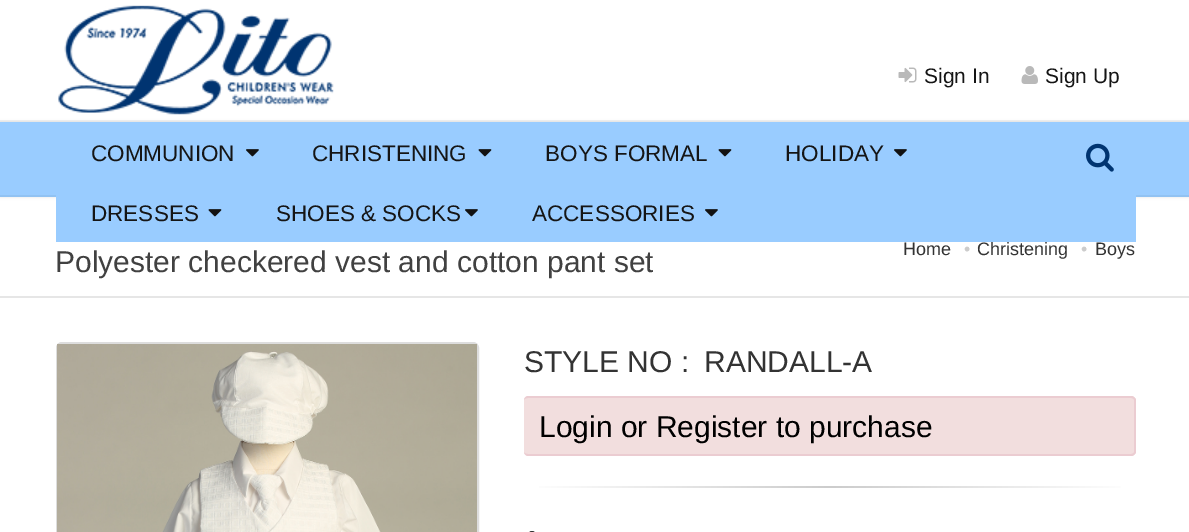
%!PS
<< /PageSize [1189 532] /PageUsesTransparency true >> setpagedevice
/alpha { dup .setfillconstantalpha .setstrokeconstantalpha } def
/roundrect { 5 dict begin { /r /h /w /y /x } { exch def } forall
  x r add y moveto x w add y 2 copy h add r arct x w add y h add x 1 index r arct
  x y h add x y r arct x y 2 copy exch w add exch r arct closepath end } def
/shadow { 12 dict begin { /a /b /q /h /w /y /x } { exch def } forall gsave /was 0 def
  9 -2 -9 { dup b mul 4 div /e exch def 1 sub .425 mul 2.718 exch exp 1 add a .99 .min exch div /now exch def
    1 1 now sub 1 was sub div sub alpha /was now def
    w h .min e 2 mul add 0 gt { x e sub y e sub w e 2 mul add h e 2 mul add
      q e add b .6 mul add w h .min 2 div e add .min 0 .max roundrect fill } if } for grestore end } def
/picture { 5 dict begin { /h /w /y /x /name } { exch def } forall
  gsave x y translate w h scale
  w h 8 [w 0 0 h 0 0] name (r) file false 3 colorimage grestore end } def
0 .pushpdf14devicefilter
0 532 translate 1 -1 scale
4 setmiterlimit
1 setgray
0 0 1189 532 rectfill
0.949 setgray
0 120 1189 2 rectfill
(img1.rgb) 58 5 276 110 picture
(img2.rgb) 898 67 19 16 picture
/LiberationSans-Regular [21 0 0 -21 0 0] selectfont
0.082 setgray
924 83 moveto (Sign In) show
(img3.rgb) 1021 66 17 18 picture
1045 83 moveto (Sign Up) show
0 setgray
0 122 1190 75 0 1.5 0.1 shadow
0.6 0.8 1 setrgbcolor
0 122 1189 73 rectfill
0.569 0.761 0.949 setrgbcolor
0 195 1189 2 rectfill
/LiberationSans-Regular [18 0 0 -18 0 0] selectfont
0.2 setgray
977 255 moveto (Christening) show
0.6 0.8 1 setrgbcolor
56 195 1080 47 rectfill
/LiberationSans-Regular [22.5 0 0 -22.5 0 0] selectfont
0.082 setgray
91 161 moveto (COMMUNION) show
(img4.rgb) 246 149 13 8 picture
312 161 moveto (CHRISTENING) show
(img5.rgb) 478 149 14 8 picture
545 161 moveto (BOYS FORMAL) show
(img5.rgb) 718 149 14 8 picture
785 161 moveto (HOLIDAY) show
(img4.rgb) 894 149 13 8 picture
91 221 moveto (DRESSES) show
(img5.rgb) 208 209 14 8 picture
276 221 moveto (SHOES & SOCKS) show
(img4.rgb) 465 209 13 8 picture
532 221 moveto (ACCESSORIES) show
(img4.rgb) 705 209 13 8 picture
(img6.rgb) 1086 143 28 29 picture
0.902 setgray
0 296 1189 2 rectfill
/LiberationSans-Regular [30 0 0 -30 0 0] selectfont
0.255 setgray
55 272 moveto (Polyester checkered vest and cotton pant set) show
/LiberationSans-Regular [18 0 0 -18 0 0] selectfont
0.2 setgray
903 255 moveto (Home) show
0.8 setgray
964 255 moveto (•) show
1081 255 moveto (•) show
0.2 setgray
1095 255 moveto (Boys) show
0.867 setgray
2 setlinewidth
57 343 421 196 5 roundrect stroke
(img7.rgb) 57 344 420 188 picture
/LiberationSans-Regular [30 0 0 -30 0 0] selectfont
0.2 setgray
524 372 moveto (STYLE NO :) show
704 372 moveto (RANDALL-A) show
0.949 0.871 0.871 setrgbcolor
524 396 612 60 5 roundrect fill
0.922 0.8 0.82 setrgbcolor
newpath 528 396 moveto 1131 396 lineto 1133 396 1136 398 1136 400 curveto 1136 452 lineto 1136 454 1133 456 1131 456 curveto 528 456 lineto 526 456 524 454 524 452 curveto 524 400 lineto 524 398 526 396 528 396 curveto closepath 528 398 moveto 1131 398 lineto 1133 398 1134 399 1134 400 curveto 1134 452 lineto 1134 453 1133 454 1131 454 curveto 528 454 lineto 526 454 524 453 524 452 curveto 524 400 lineto 524 399 526 398 528 398 curveto closepath eofill
0 setgray
539 437 moveto (Login or Register to purchase) show
gsave newpath 539 486 moveto 1121 486 lineto 1121 488 lineto 539 488 lineto closepath clip newpath
<< /ShadingType 2 /ColorSpace /DeviceRGB /Coords [524 487 1136 487] /Extend [true true] /Function << /FunctionType 3 /Domain [0 1] /Functions [<< /FunctionType 2 /Domain [0 1] /C0 [1 1 1] /C1 [0.8 0.8 0.8] /N 1 >> << /FunctionType 2 /Domain [0 1] /C0 [0.8 0.8 0.8] /C1 [1 1 1] /N 1 >>] /Bounds [0.5] /Encode [0 1 0 1] >> >> shfill grestore
0.2 setgray
528 531 8 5 4 roundrect fill
.poppdf14devicefilter showpage
